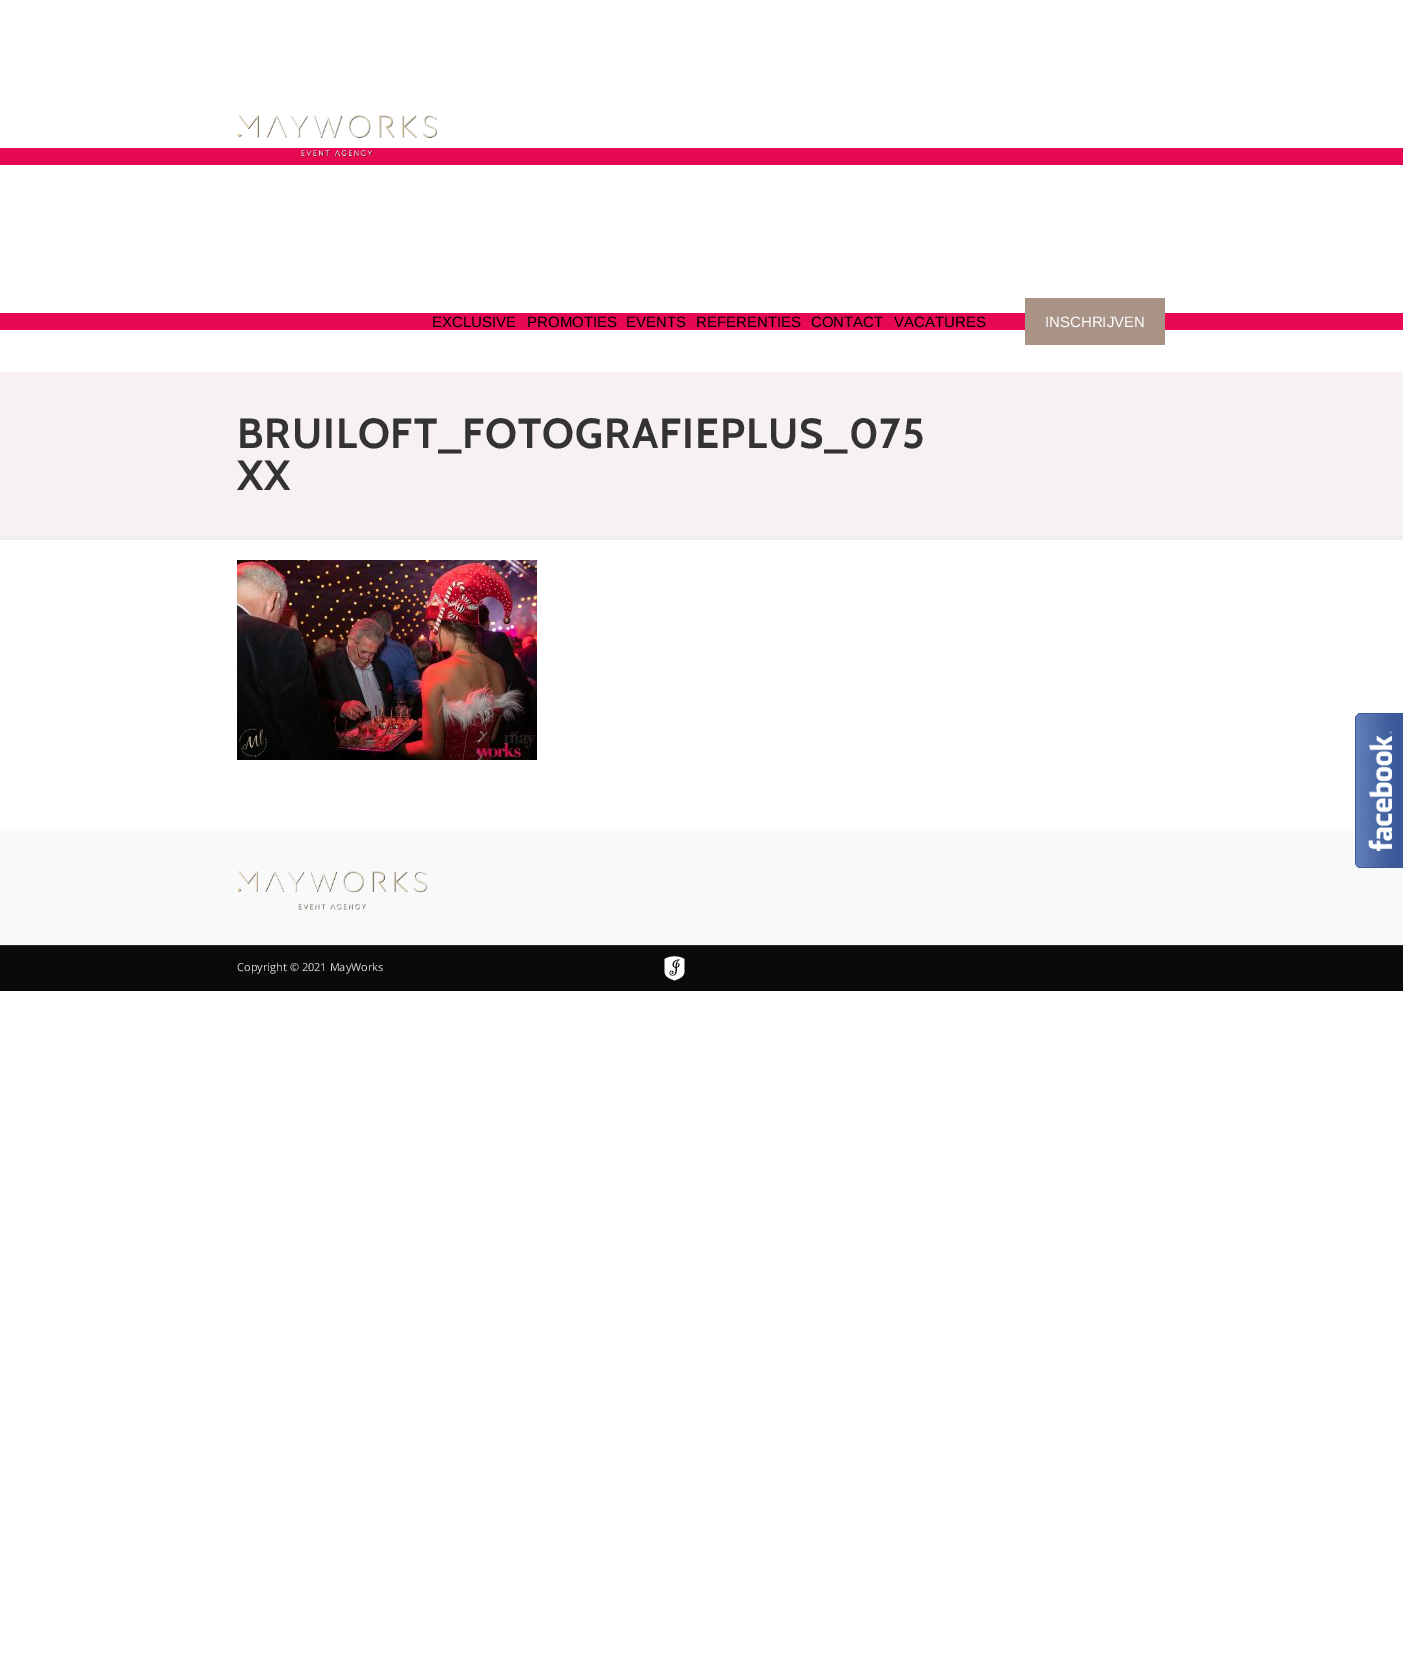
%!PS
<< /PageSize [1403 1659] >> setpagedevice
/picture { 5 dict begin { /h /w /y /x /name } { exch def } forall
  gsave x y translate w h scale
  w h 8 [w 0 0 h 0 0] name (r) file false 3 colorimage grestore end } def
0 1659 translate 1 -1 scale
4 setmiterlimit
1 setgray
0 0 1403 1659 rectfill
(img1.rgb) 0 148 1403 182 picture
(img2.rgb) 237 115 200 42 picture
/LiberationSans-Regular [15 0 0 -15 0 0] selectfont
0 setgray
432 327 moveto (EXCLUSIVE) show
527 327 moveto (PROMOTIES) show
626 327 moveto (EVENTS) show
696 327 moveto (REFERENTIES) show
811 327 moveto (CONTACT) show
894 327 moveto (VACATURES) show
0.663 0.576 0.525 setrgbcolor
1025 298 140 47 rectfill
1 setgray
1045 327 moveto (INSCHRIJVEN) show
0.969 0.949 0.945 setrgbcolor
0 372 1403 164 rectfill
0.933 setgray
0 536 1403 4 rectfill
/Cabin-Bold [42 0 0 -42 0 0] selectfont
0.2 setgray
237 448 moveto 1 0 (BRUILOFT_FOTOGRAFIEPLUS_075) ashow
237 490 moveto 1 0 (XX) ashow
(img3.rgb) 237 560 300 200 picture
0.976 setgray
0 831 1403 114 rectfill
(img4.rgb) 237 871 190 39 picture
0.039 setgray
0 946 1403 45 rectfill
0.165 setgray
0 945 1403 1 rectfill
/OpenSans-Regular [11 0 0 -11 0 0] selectfont
0.867 setgray
237 971 moveto (Copyright © 2021 MayWorks) show
(img5.rgb) 664 956 21 25 picture
(img6.rgb) 1355 713 48 155 picture
showpage
